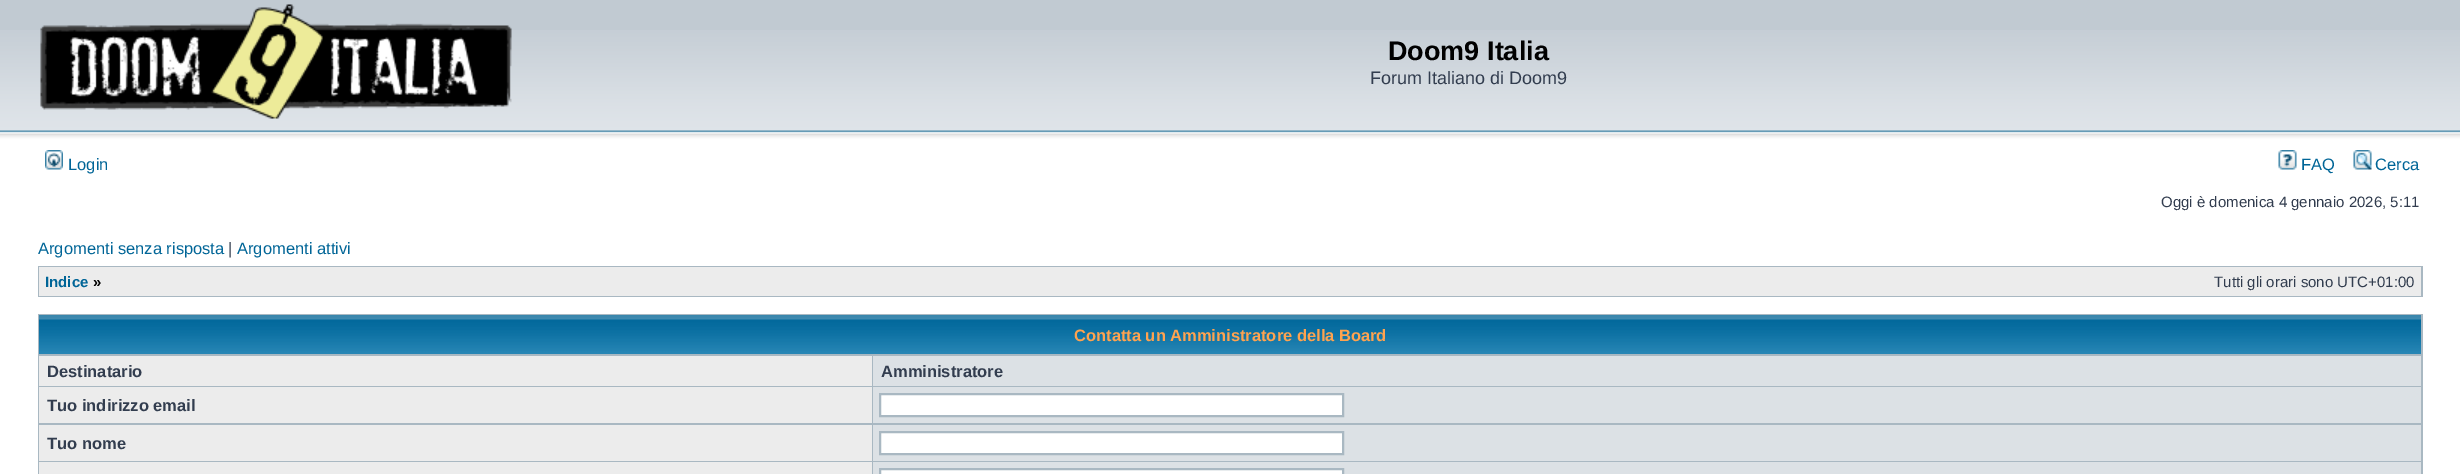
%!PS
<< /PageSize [2460 474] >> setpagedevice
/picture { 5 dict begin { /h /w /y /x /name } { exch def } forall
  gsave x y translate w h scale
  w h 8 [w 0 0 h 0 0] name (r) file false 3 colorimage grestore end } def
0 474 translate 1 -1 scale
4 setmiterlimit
1 setgray
0 0 2460 474 rectfill
0.757 0.792 0.824 setrgbcolor
0 0 2460 30 rectfill
(img1.rgb) 0 30 2460 117 picture
(img2.rgb) 40 4 472 115 picture
/LiberationSans-Bold [27 0 0 -27 0 0] selectfont
0 setgray
1388 60 moveto (Doom9 Italia) show
/LiberationSans-Regular [18 0 0 -18 0 0] selectfont
0.196 0.239 0.31 setrgbcolor
1370 84 moveto (Forum Italiano di Doom9) show
(img3.rgb) 45 150 18 20 picture
/LiberationSans-Regular [16.5 0 0 -16.5 0 0] selectfont
0 0.396 0.592 setrgbcolor
68 170 moveto (Login) show
(img4.rgb) 2278 150 19 20 picture
2301 170 moveto (FAQ) show
(img5.rgb) 2353 150 19 20 picture
2375 170 moveto (Cerca) show
/LiberationSans-Regular [15 0 0 -15 0 0] selectfont
0.196 0.239 0.31 setrgbcolor
2161 207 moveto (Oggi è domenica 4 gennaio 2026, 5:11) show
/LiberationSans-Regular [16.5 0 0 -16.5 0 0] selectfont
0 0.396 0.592 setrgbcolor
38 254 moveto (Argomenti senza risposta) show
0.196 0.239 0.31 setrgbcolor
228 254 moveto (|) show
0 0.396 0.592 setrgbcolor
237 254 moveto (Argomenti attivi) show
0.663 0.722 0.761 setrgbcolor
38 266 2385 31 rectfill
0.925 setgray
39 267 2382 29 rectfill
/LiberationSans-Bold [15 0 0 -15 0 0] selectfont
0 0.396 0.592 setrgbcolor
45 287 moveto (Indice) show
0 setgray
93 287 moveto (») show
/LiberationSans-Regular [15 0 0 -15 0 0] selectfont
0.196 0.239 0.31 setrgbcolor
2214 287 moveto (Tutti gli orari sono UTC+01:00) show
0.663 0.722 0.761 setrgbcolor
38 314 2385 160 rectfill
(img6.rgb) 39 315 2382 39 picture
/LiberationSans-Bold [16.5 0 0 -16.5 0 0] selectfont
1 0.639 0.31 setrgbcolor
1074 341 moveto (Contatta un Amministratore della Board) show
0.925 setgray
39 356 833 30 rectfill
0.196 0.239 0.31 setrgbcolor
47 377 moveto (Destinatario) show
0.863 0.882 0.898 setrgbcolor
873 356 1548 30 rectfill
0.196 0.239 0.31 setrgbcolor
881 377 moveto (Amministratore) show
0.925 setgray
39 387 833 36 rectfill
0.196 0.239 0.31 setrgbcolor
47 411 moveto (Tuo indirizzo email) show
0.863 0.882 0.898 setrgbcolor
873 387 1548 36 rectfill
1 setgray
newpath 880 394 moveto 1343 394 lineto 1343 416 lineto 880 416 lineto closepath gsave fill grestore
0.663 0.722 0.761 setrgbcolor
2 setlinewidth
stroke
0.925 setgray
39 425 833 36 rectfill
0.196 0.239 0.31 setrgbcolor
47 449 moveto (Tuo nome) show
0.863 0.882 0.898 setrgbcolor
873 425 1548 36 rectfill
1 setgray
newpath 880 432 moveto 1343 432 lineto 1343 454 lineto 880 454 lineto closepath gsave fill grestore
0.663 0.722 0.761 setrgbcolor
stroke
0.925 setgray
39 462 833 12 rectfill
0.863 0.882 0.898 setrgbcolor
873 462 1548 12 rectfill
1 setgray
newpath 880 469 moveto 1343 469 lineto 1343 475 lineto 880 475 lineto closepath gsave fill grestore
0.663 0.722 0.761 setrgbcolor
stroke
showpage
